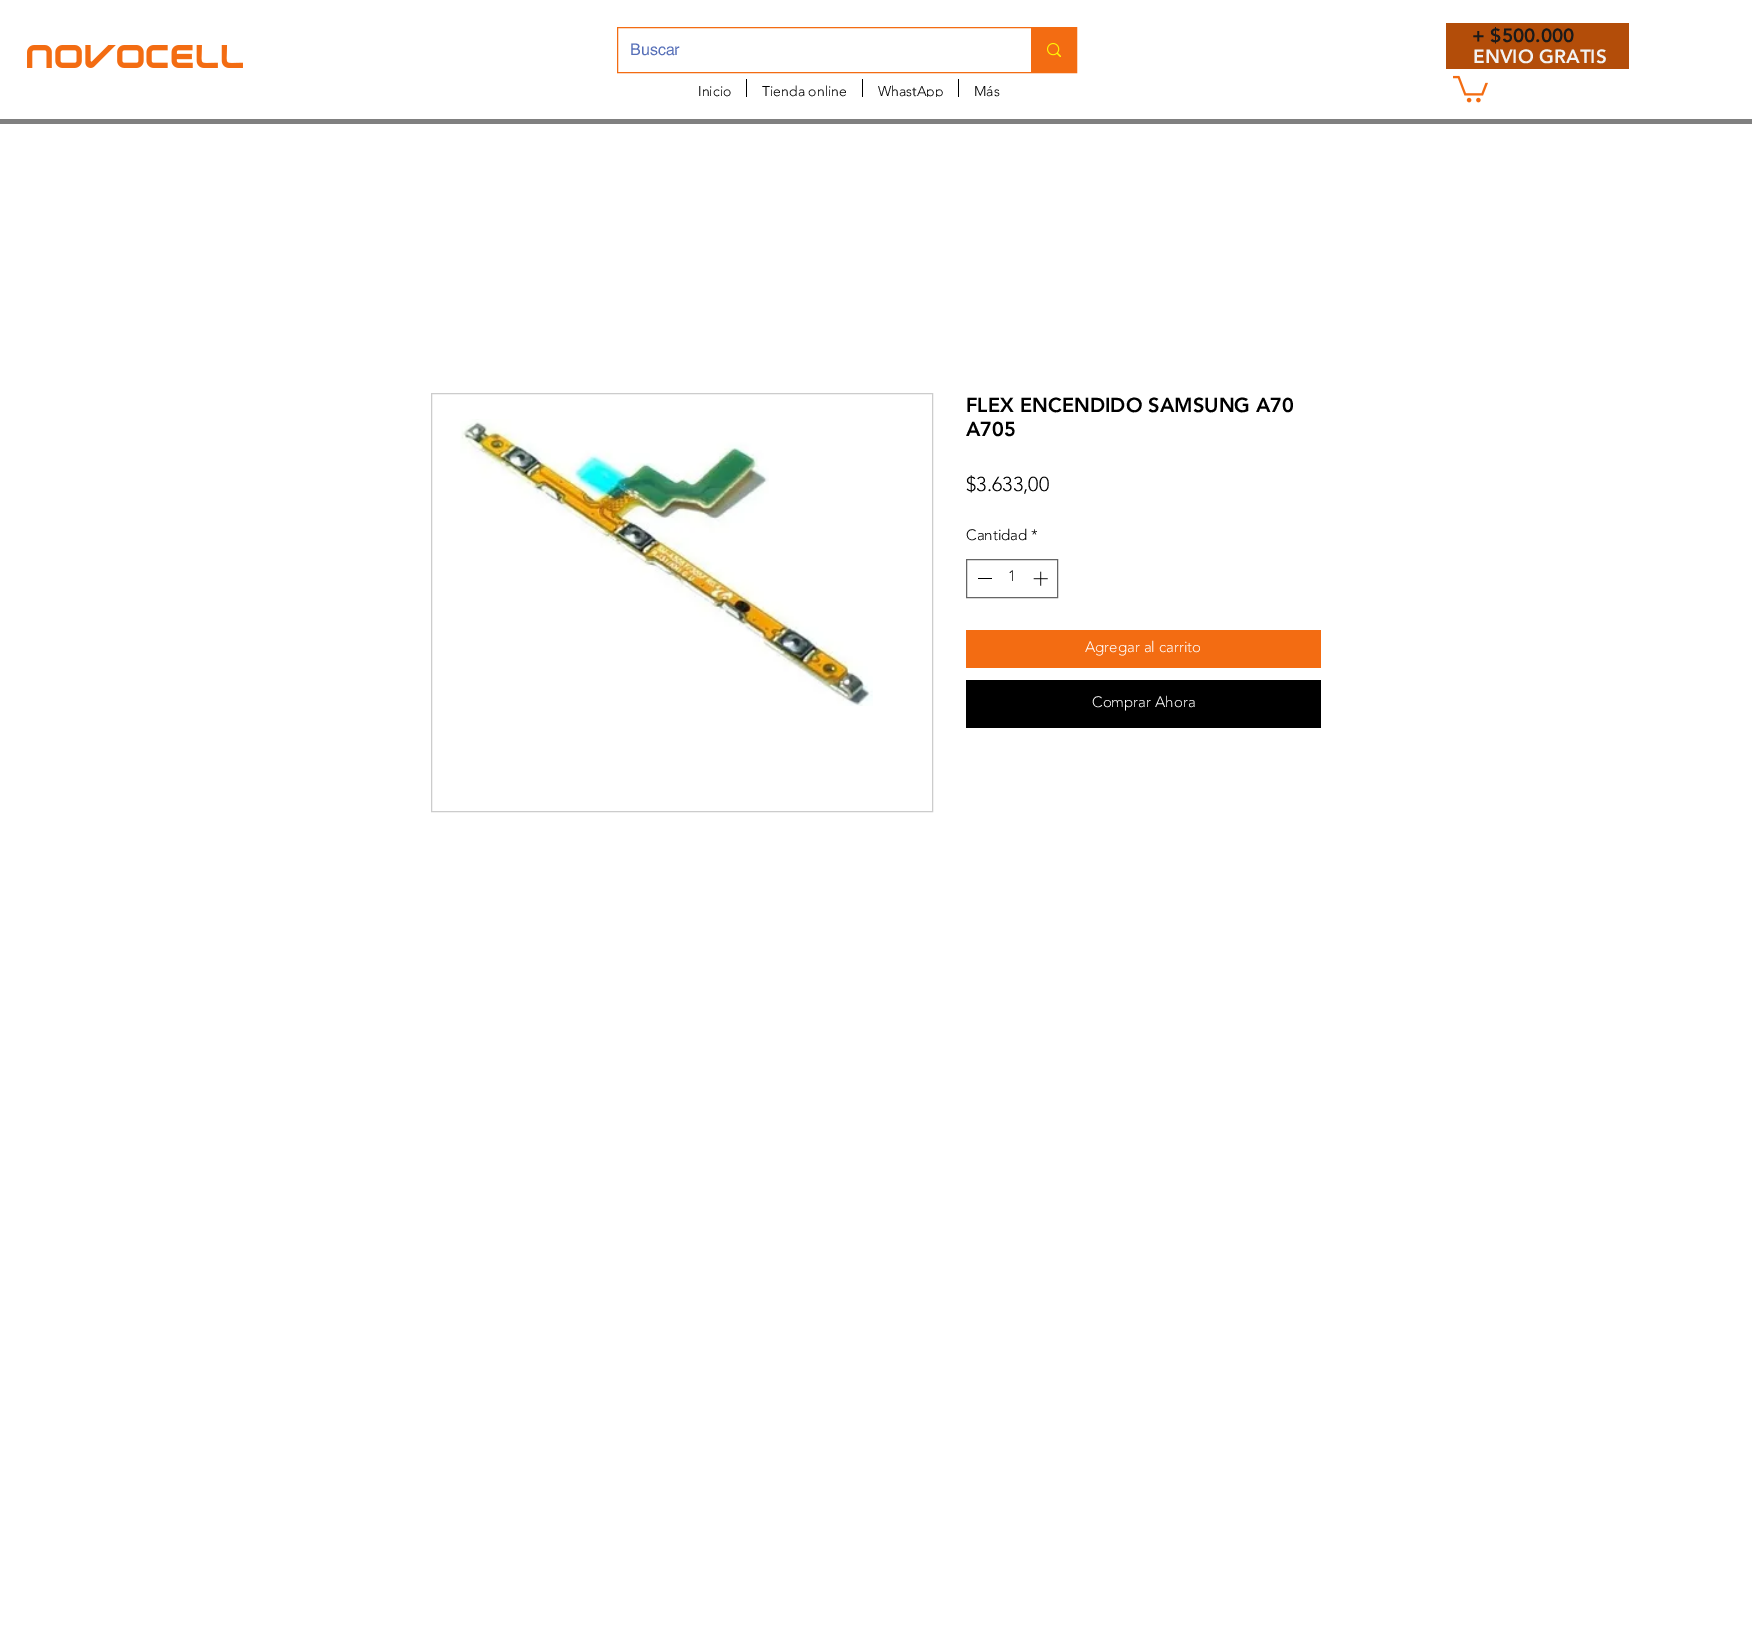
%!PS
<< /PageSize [1752 1631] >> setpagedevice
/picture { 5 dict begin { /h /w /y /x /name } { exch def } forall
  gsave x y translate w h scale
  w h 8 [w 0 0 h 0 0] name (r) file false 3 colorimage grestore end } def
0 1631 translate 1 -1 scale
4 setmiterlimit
1 setgray
0 0 1752 1631 rectfill
(img1.rgb) 27 45 216 23 picture
0.953 0.424 0.071 setrgbcolor
617.5 27.5 459 45 rectstroke
/helvetica-Regular [16 0 0 -16 0 0] selectfont
0.337 0.435 0.722 setrgbcolor
630 55 moveto (Buscar) show
0.953 0.424 0.071 setrgbcolor
1031 28 45 44 rectfill
(img2.rgb) 1047 43 14 14 picture
/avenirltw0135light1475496-Light [14 0 0 -14 0 0] selectfont
0 setgray
698 96 moveto (Inicio) show
746 79 1 18 rectfill
762 96 moveto (Tienda online) show
862 79 1 18 rectfill
gsave
603 79 491 18 rectclip
878 96 moveto (WhastApp) show
grestore
958 79 1 18 rectfill
974 96 moveto (Más) show
0.702 0.302 0.035 setrgbcolor
1446 23 183 46 rectfill
/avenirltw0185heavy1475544-Black [19 0 0 -19 0 0] selectfont
0.102 setgray
1472 42 moveto (+ $500.000) show
0.949 setgray
1473 63 moveto (ENVIO GRATIS) show
(img3.rgb) 1453 75 35 28 picture
0.502 setgray
0 119 1752 5 rectfill
0.8 setgray
431.5 393.5 501 418 rectstroke
(img4.rgb) 460 419 413 287 picture
/avenirltw0185heavy1475544-Black [20 0 0 -20 0 0] selectfont
0 setgray
966 412 moveto (FLEX ENCENDIDO SAMSUNG A70) show
966 436 moveto (A705) show
/Avenir-Light [20 0 0 -20 0 0] selectfont
966 491 moveto ($3.633,00) show
/Avenir-Light [15 0 0 -15 0 0] selectfont
966 540 moveto (Cantidad *) show
0.4 setgray
966.5 559.5 91 38 rectstroke
0 setgray
978 578 14 1 rectfill
1008 581 moveto (1) show
(img5.rgb) 1033 571 15 15 picture
0.953 0.424 0.071 setrgbcolor
966 630 355 38 rectfill
1 setgray
1085 652 moveto (Agregar al carrito) show
0 setgray
966 680 355 48 rectfill
1 setgray
1092 707 moveto (Comprar Ahora) show
showpage
